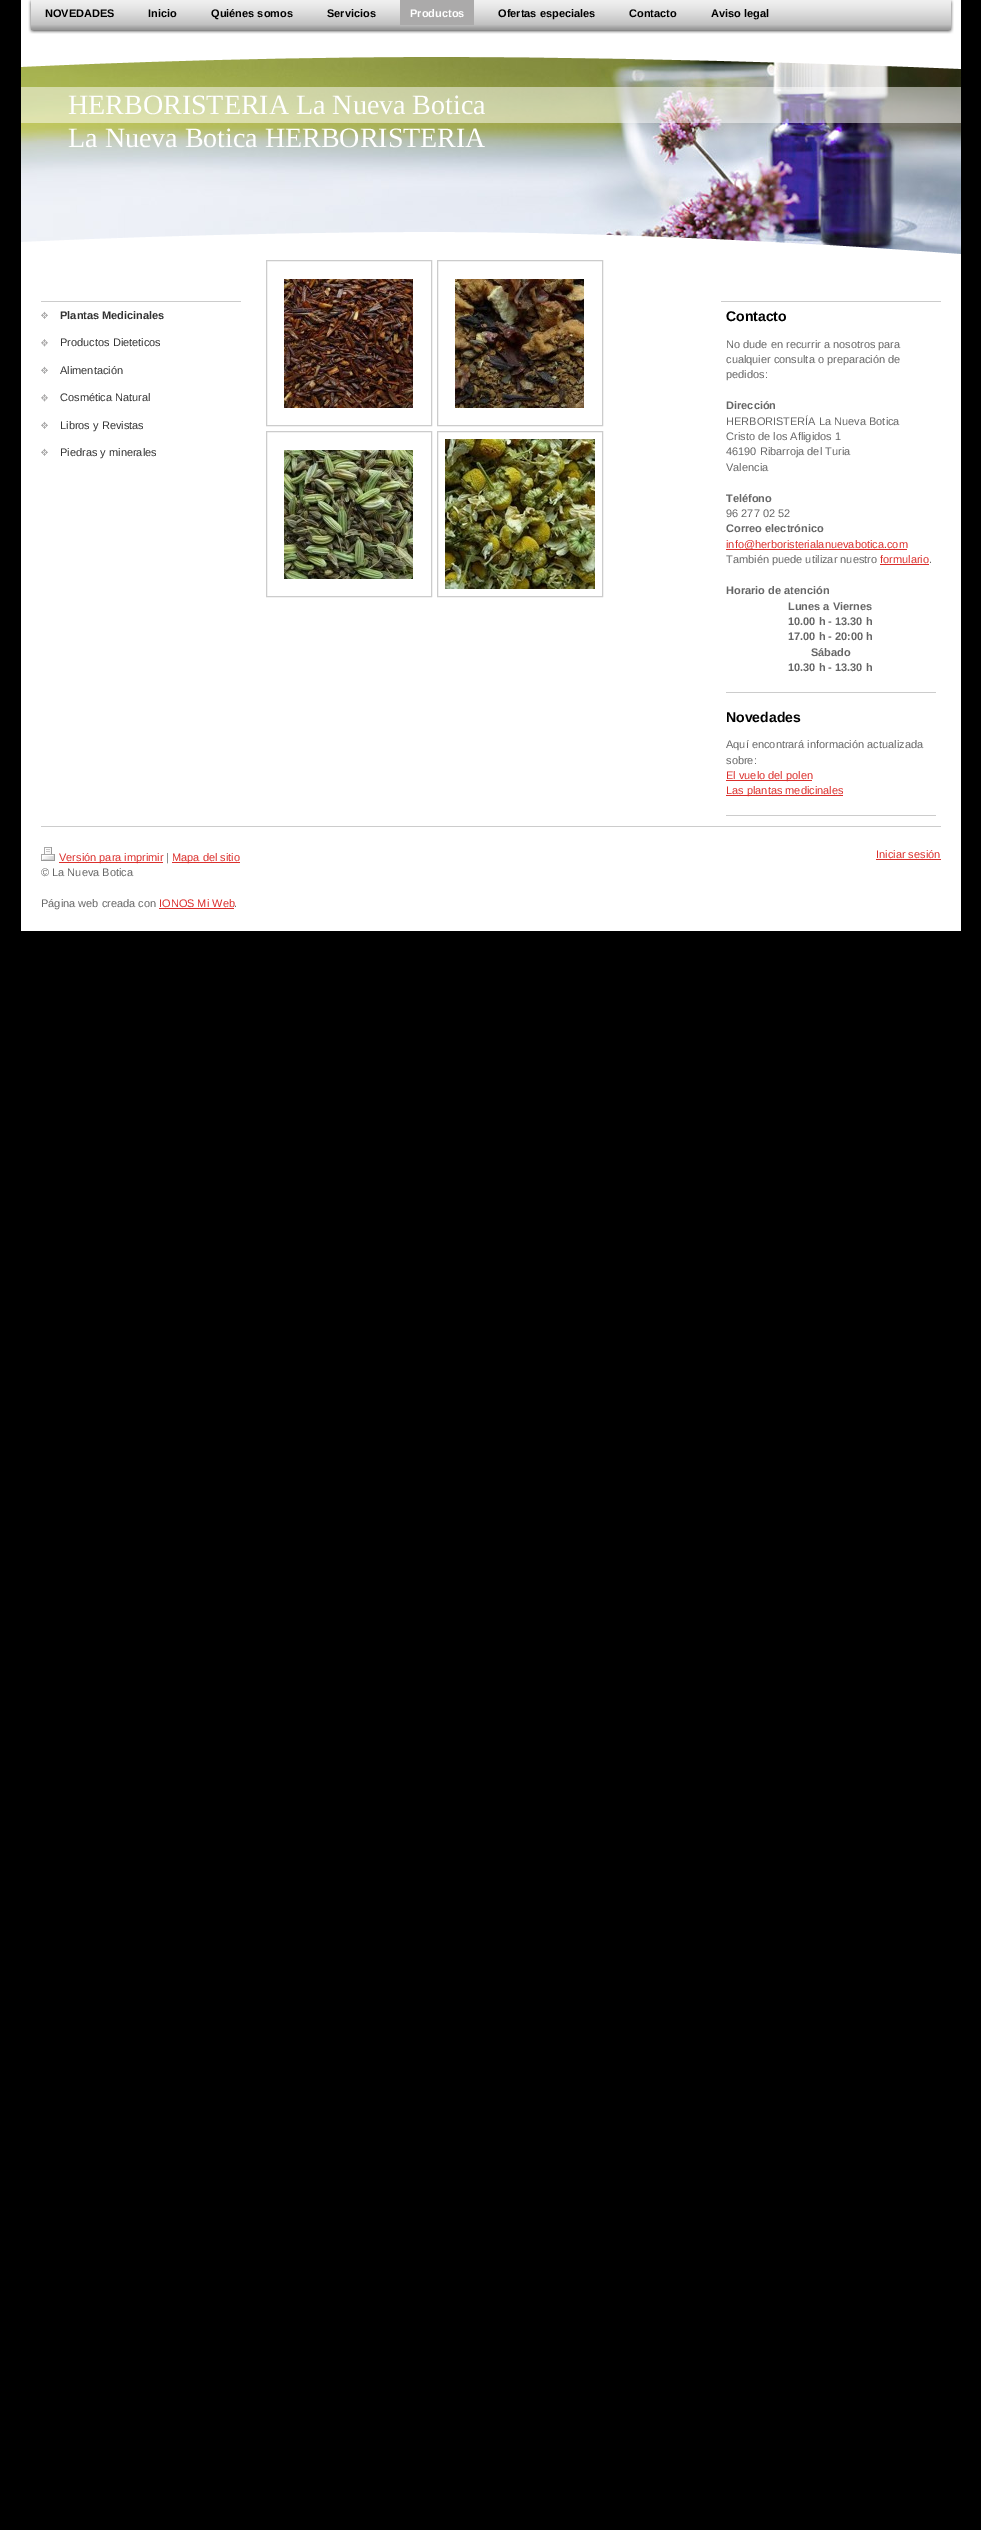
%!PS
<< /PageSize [981 2530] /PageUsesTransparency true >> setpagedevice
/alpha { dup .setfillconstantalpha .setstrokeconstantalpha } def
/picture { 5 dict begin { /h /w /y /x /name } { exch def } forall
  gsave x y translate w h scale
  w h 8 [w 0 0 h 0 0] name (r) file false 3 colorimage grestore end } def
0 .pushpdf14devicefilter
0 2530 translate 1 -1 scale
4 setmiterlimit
0 setgray
0 0 981 2530 rectfill
1 setgray
21 0 940 45 rectfill
(img1.rgb) 28 0 6 34 picture
(img2.rgb) 34 0 914 34 picture
/LiberationSans-Bold [11 0 0 -11 0 0] selectfont
0 setgray
45 17 moveto (NOVEDADES) show
148 17 moveto (Inicio) show
211 17 moveto (Quiénes somos) show
327 17 moveto (Servicios) show
0.671 0.667 0.667 setrgbcolor
400 0 74 25 rectfill
1 setgray
410 17 moveto (Productos) show
0 setgray
498 17 moveto (Ofertas especiales) show
629 17 moveto (Contacto) show
711 17 moveto (Aviso legal) show
(img3.rgb) 948 0 6 34 picture
(img5.rgb) 21 57 940 197 picture
(img4.rgb) 21 45 940 24 picture
0.5 alpha
1 setgray
21 87 940 36 rectfill
/LiberationSerif-Regular [28 0 0 -28 0 0] selectfont
1 alpha
68 114 moveto (HERBORISTERIA La Nueva Botica) show
68 147 moveto (La Nueva Botica HERBORISTERIA) show
(img6.rgb) 21 232 940 23 picture
21 255 940 676 rectfill
0.671 0.667 0.667 setrgbcolor
41 311 7 145 rectfill
0.8 setgray
41 301 200 1 rectfill
(img7.rgb) 41 302 200 27 picture
/LiberationSans-Bold [11 0 0 -11 0 0] selectfont
0.2 setgray
60 319 moveto (Plantas Medicinales) show
(img8.rgb) 41 329 200 28 picture
/LiberationSans-Regular [11 0 0 -11 0 0] selectfont
60 346 moveto (Productos Dieteticos) show
(img7.rgb) 41 357 200 27 picture
60 374 moveto (Alimentación) show
(img8.rgb) 41 384 200 28 picture
60 401 moveto (Cosmética Natural) show
(img7.rgb) 41 412 200 27 picture
60 429 moveto (Libros y Revistas) show
(img7.rgb) 41 439 200 27 picture
60 456 moveto (Piedras y minerales) show
0.8 setgray
266.5 260.5 165 165 rectstroke
(img9.rgb) 284 279 129 129 picture
437.5 260.5 165 165 rectstroke
(img10.rgb) 455 279 129 129 picture
266.5 431.5 165 165 rectstroke
(img11.rgb) 284 450 129 129 picture
437.5 431.5 165 165 rectstroke
(img12.rgb) 445 439 150 150 picture
721 301 220 1 rectfill
/LiberationSans-Bold [14 0 0 -14 0 0] selectfont
0 setgray
726 321 moveto (Contacto) show
/LiberationSans-Regular [11 0 0 -11 0 0] selectfont
0.4 setgray
726 348 moveto (No dude en recurrir a nosotros para) show
726 363 moveto (cualquier consulta o preparación de) show
726 378 moveto (pedidos:) show
/LiberationSans-Bold [11 0 0 -11 0 0] selectfont
726 409 moveto (Dirección) show
/LiberationSans-Regular [11 0 0 -11 0 0] selectfont
726 425 moveto (HERBORISTERÍA La Nueva Botica) show
726 440 moveto (Cristo de los Afligidos 1) show
726 455 moveto (46190 Ribarroja del Turia) show
726 471 moveto (Valencia) show
/LiberationSans-Bold [11 0 0 -11 0 0] selectfont
726 502 moveto (Teléfono) show
/LiberationSans-Regular [11 0 0 -11 0 0] selectfont
726 517 moveto (96 277 02 52) show
/LiberationSans-Bold [11 0 0 -11 0 0] selectfont
726 532 moveto (Correo electrónico) show
0.859 0.184 0.173 setrgbcolor
726 549 181 1 rectfill
/LiberationSans-Regular [11 0 0 -11 0 0] selectfont
726 548 moveto (info@herboristerialanuevabotica.com) show
0.4 setgray
726 563 moveto (También puede utilizar nuestro) show
0.859 0.184 0.173 setrgbcolor
880 563 moveto (formulario) show
880 564 49 1 rectfill
0.4 setgray
929 563 moveto (.) show
/LiberationSans-Bold [11 0 0 -11 0 0] selectfont
726 594 moveto (Horario de atención) show
788 610 moveto (Lunes a Viernes) show
788 625 moveto (10.00 h - 13.30 h) show
788 640 moveto (17.00 h - 20:00 h) show
811 656 moveto (Sábado) show
788 671 moveto (10.30 h - 13.30 h) show
0.8 setgray
726 692 210 1 rectfill
/LiberationSans-Bold [14 0 0 -14 0 0] selectfont
0 setgray
726 722 moveto (Novedades) show
/LiberationSans-Regular [11 0 0 -11 0 0] selectfont
0.4 setgray
726 748 moveto (Aquí encontrará información actualizada) show
726 764 moveto (sobre:) show
0.859 0.184 0.173 setrgbcolor
726 780 86 1 rectfill
726 779 moveto (El vuelo del polen) show
726 795 117 1 rectfill
726 794 moveto (Las plantas medicinales) show
0.8 setgray
726 815 210 1 rectfill
41 826 900 1 rectfill
(img13.rgb) 41 847 14 14 picture
0.859 0.184 0.173 setrgbcolor
59 862 104 1 rectfill
59 861 moveto (Versión para imprimir) show
0.4 setgray
166 861 moveto (|) show
0.859 0.184 0.173 setrgbcolor
172 862 68 1 rectfill
172 861 moveto (Mapa del sitio) show
gsave
41 847 900 64 rectclip
0.4 setgray
41 876 moveto (© La Nueva Botica) show
grestore
0.4 setgray
41 907 moveto (Página web creada con) show
0.859 0.184 0.173 setrgbcolor
159 907 moveto (IONOS Mi Web) show
159 908 75 1 rectfill
0.4 setgray
234 907 moveto (.) show
0.859 0.184 0.173 setrgbcolor
876 858 moveto (Iniciar sesión) show
876 859 65 1 rectfill
.poppdf14devicefilter showpage
